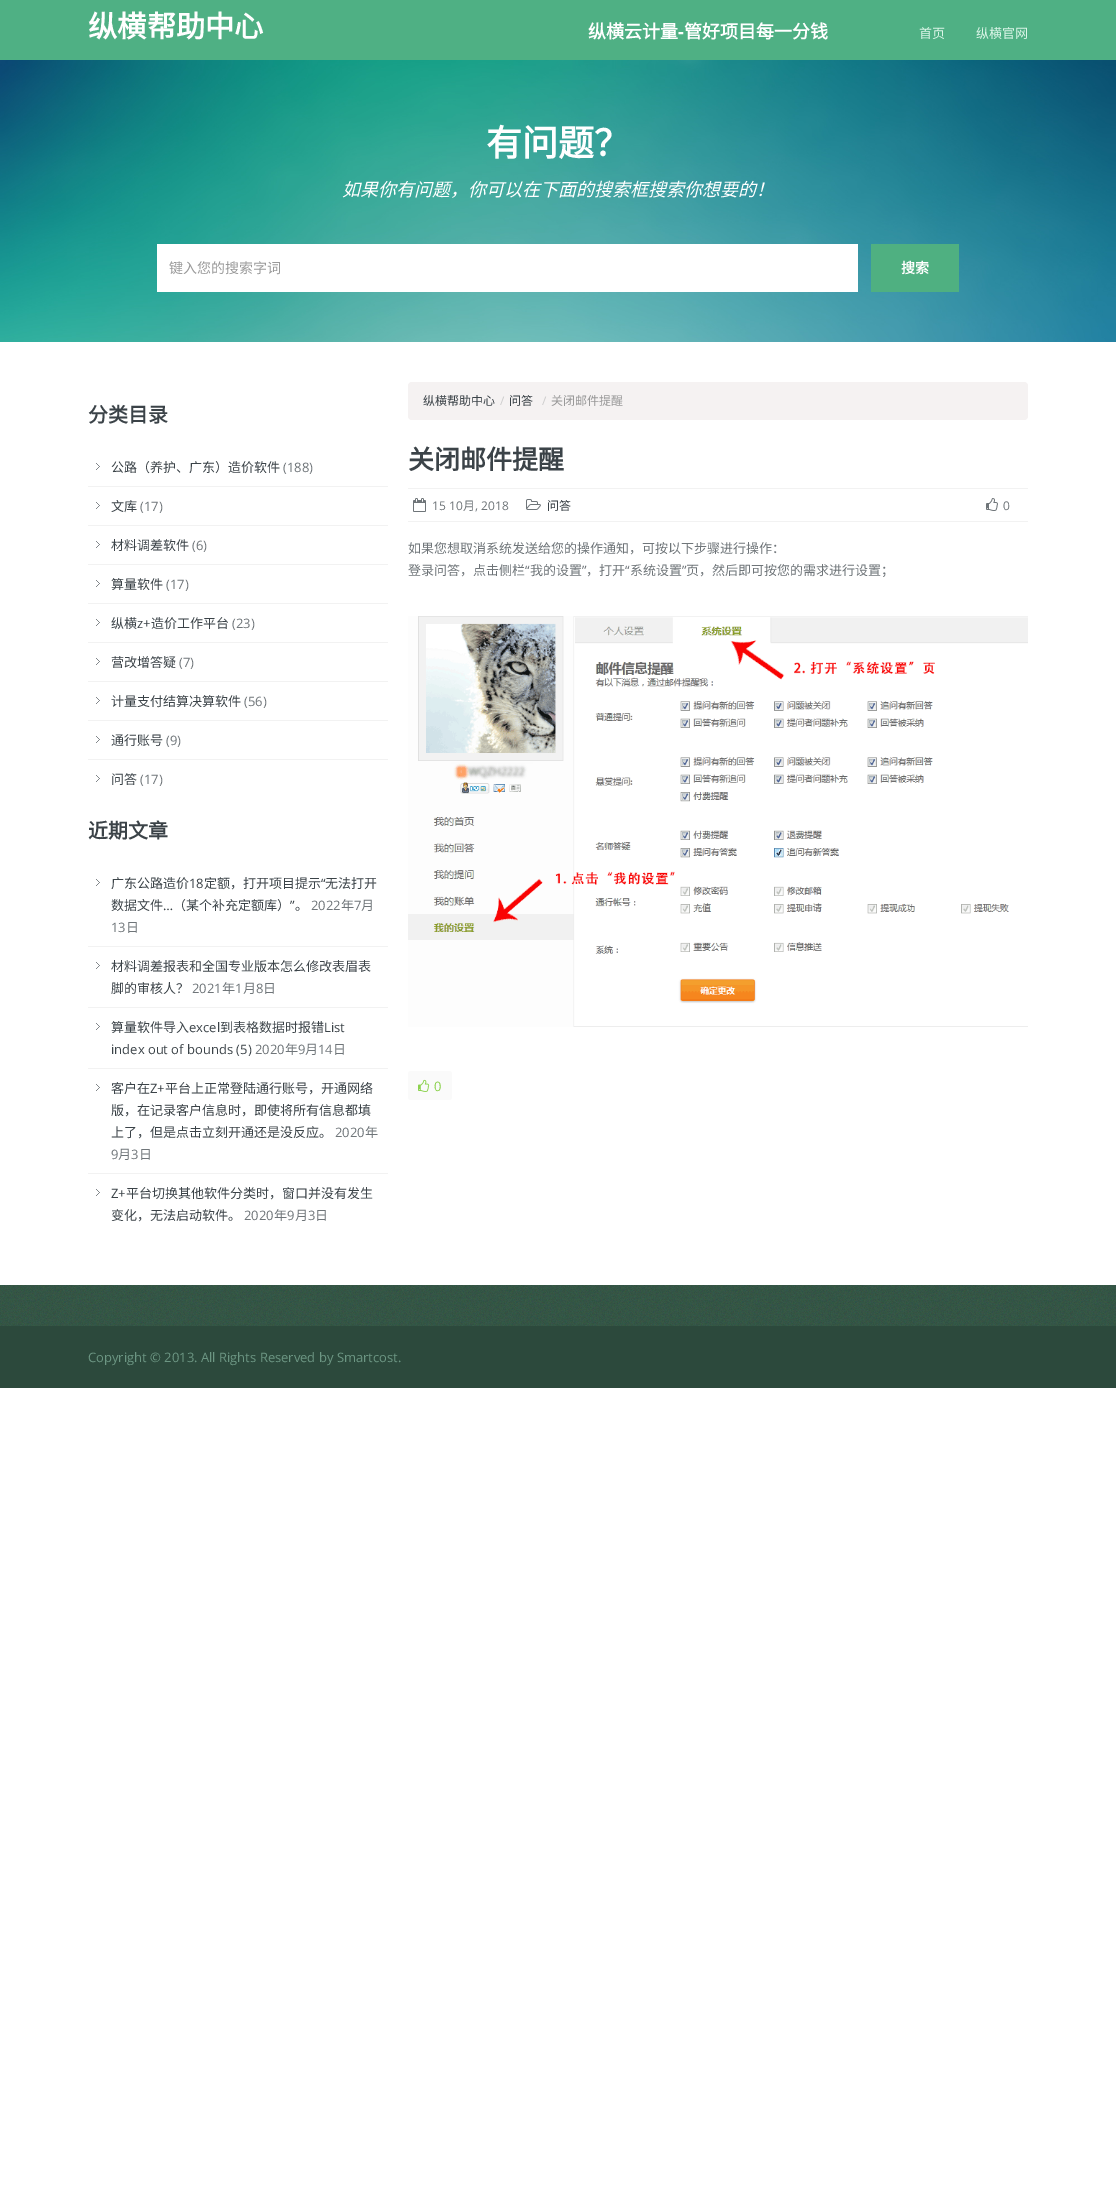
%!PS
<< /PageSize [1116 2211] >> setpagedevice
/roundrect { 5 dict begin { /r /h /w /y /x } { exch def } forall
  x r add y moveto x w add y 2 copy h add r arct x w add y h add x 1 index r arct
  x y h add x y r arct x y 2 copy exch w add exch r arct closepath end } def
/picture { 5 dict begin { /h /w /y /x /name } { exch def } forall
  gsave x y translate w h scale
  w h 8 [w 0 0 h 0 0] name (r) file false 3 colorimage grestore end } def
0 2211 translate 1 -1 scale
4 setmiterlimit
1 setgray
0 0 1116 2211 rectfill
0.31 0.69 0.518 setrgbcolor
0 0 1116 60 rectfill
/NotoSansCJKSC-Bold [29.25 0 0 -29.25 0 0] selectfont
1 setgray
88 37 moveto (纵横帮助中心) show
/NotoSansCJKSC-Bold [18 0 0 -18 0 0] selectfont
588 38 moveto (纵横云计量) show
/OpenSans-Bold [18 0 0 -18 0 0] selectfont
678 38 moveto (-) show
/NotoSansCJKSC-Bold [18 0 0 -18 0 0] selectfont
684 38 moveto (管好项目每一分钱) show
/NotoSansCJKSC-Regular [13 0 0 -13 0 0] selectfont
0.867 0.965 0.914 setrgbcolor
919 38 moveto (首页) show
976 38 moveto (纵横官网) show
(img1.rgb) 0 60 1116 282 picture
/NotoSansCJKSC-Bold [36 0 0 -36 0 0] selectfont
1 setgray
486 156 moveto (有问题？) show
/NotoSansCJKSC-Italic [18 0 0 -18 0 0] selectfont
342 196 moveto (如果你有问题，你可以在下面的搜索框搜索你想要的！) show
157 244 701 48 rectfill
/NotoSansCJKSC-Regular [14 0 0 -14 0 0] selectfont
0.6 setgray
169 273 moveto (键入您的搜索字词) show
0.31 0.69 0.506 setrgbcolor
871 244 88 48 rectfill
/NotoSansCJKSC-Bold [14 0 0 -14 0 0] selectfont
1 setgray
901 273 moveto (搜索) show
/NotoSansCJKSC-Bold [20 0 0 -20 0 0] selectfont
0.231 0.263 0.282 setrgbcolor
88 422 moveto (分类目录) show
(img2.rgb) 96 463 4 7 picture
0.949 setgray
88 486 300 1 rectfill
/NotoSansCJKSC-Regular [13 0 0 -13 0 0] selectfont
0.231 0.263 0.282 setrgbcolor
111 472 moveto (公路（养护、广东）造价软件) show
/OpenSans-Regular [13 0 0 -13 0 0] selectfont
0.435 0.459 0.475 setrgbcolor
283 472 moveto (\(188\)) show
(img2.rgb) 96 502 4 7 picture
0.949 setgray
88 525 300 1 rectfill
/NotoSansCJKSC-Regular [13 0 0 -13 0 0] selectfont
0.231 0.263 0.282 setrgbcolor
111 511 moveto (文库) show
/OpenSans-Regular [13 0 0 -13 0 0] selectfont
0.435 0.459 0.475 setrgbcolor
140 511 moveto (\(17\)) show
(img2.rgb) 96 541 4 7 picture
0.949 setgray
88 564 300 1 rectfill
/NotoSansCJKSC-Regular [13 0 0 -13 0 0] selectfont
0.231 0.263 0.282 setrgbcolor
111 550 moveto (材料调差软件) show
/OpenSans-Regular [13 0 0 -13 0 0] selectfont
0.435 0.459 0.475 setrgbcolor
192 550 moveto (\(6\)) show
(img2.rgb) 96 580 4 7 picture
0.949 setgray
88 603 300 1 rectfill
/NotoSansCJKSC-Regular [13 0 0 -13 0 0] selectfont
0.231 0.263 0.282 setrgbcolor
111 589 moveto (算量软件) show
/OpenSans-Regular [13 0 0 -13 0 0] selectfont
0.435 0.459 0.475 setrgbcolor
166 589 moveto (\(17\)) show
(img2.rgb) 96 619 4 7 picture
0.949 setgray
88 642 300 1 rectfill
/NotoSansCJKSC-Regular [13 0 0 -13 0 0] selectfont
0.231 0.263 0.282 setrgbcolor
111 628 moveto (纵横) show
/OpenSans-Regular [13 0 0 -13 0 0] selectfont
137 628 moveto (z+) show
/NotoSansCJKSC-Regular [13 0 0 -13 0 0] selectfont
151 628 moveto (造价工作平台) show
/OpenSans-Regular [13 0 0 -13 0 0] selectfont
0.435 0.459 0.475 setrgbcolor
232 628 moveto (\(23\)) show
(img2.rgb) 96 658 4 7 picture
0.949 setgray
88 681 300 1 rectfill
/NotoSansCJKSC-Regular [13 0 0 -13 0 0] selectfont
0.231 0.263 0.282 setrgbcolor
111 667 moveto (营改增答疑) show
/OpenSans-Regular [13 0 0 -13 0 0] selectfont
0.435 0.459 0.475 setrgbcolor
179 667 moveto (\(7\)) show
(img2.rgb) 96 697 4 7 picture
0.949 setgray
88 720 300 1 rectfill
/NotoSansCJKSC-Regular [13 0 0 -13 0 0] selectfont
0.231 0.263 0.282 setrgbcolor
111 706 moveto (计量支付结算决算软件) show
/OpenSans-Regular [13 0 0 -13 0 0] selectfont
0.435 0.459 0.475 setrgbcolor
244 706 moveto (\(56\)) show
(img2.rgb) 96 736 4 7 picture
0.949 setgray
88 759 300 1 rectfill
/NotoSansCJKSC-Regular [13 0 0 -13 0 0] selectfont
0.231 0.263 0.282 setrgbcolor
111 745 moveto (通行账号) show
/OpenSans-Regular [13 0 0 -13 0 0] selectfont
0.435 0.459 0.475 setrgbcolor
166 745 moveto (\(9\)) show
(img2.rgb) 96 775 4 7 picture
/NotoSansCJKSC-Regular [13 0 0 -13 0 0] selectfont
0.231 0.263 0.282 setrgbcolor
111 784 moveto (问答) show
/OpenSans-Regular [13 0 0 -13 0 0] selectfont
0.435 0.459 0.475 setrgbcolor
140 784 moveto (\(17\)) show
/NotoSansCJKSC-Bold [20 0 0 -20 0 0] selectfont
0.231 0.263 0.282 setrgbcolor
88 838 moveto (近期文章) show
(img2.rgb) 96 879 4 7 picture
0.949 setgray
88 946 300 1 rectfill
/NotoSansCJKSC-Regular [13 0 0 -13 0 0] selectfont
0.231 0.263 0.282 setrgbcolor
111 888 moveto (广东公路造价) show
/OpenSans-Regular [13 0 0 -13 0 0] selectfont
189 888 moveto (18) show
/NotoSansCJKSC-Regular [13 0 0 -13 0 0] selectfont
204 888 moveto (定额，打开项目提示) show
/OpenSans-Regular [13 0 0 -13 0 0] selectfont
321 888 moveto (“) show
/NotoSansCJKSC-Regular [13 0 0 -13 0 0] selectfont
325 888 moveto (无法打开) show
111 910 moveto (数据文件) show
/OpenSans-Regular [13 0 0 -13 0 0] selectfont
163 910 moveto (…) show
/NotoSansCJKSC-Regular [13 0 0 -13 0 0] selectfont
173 910 moveto (（某个补充定额库）) show
/OpenSans-Regular [13 0 0 -13 0 0] selectfont
290 910 moveto (”) show
/NotoSansCJKSC-Regular [13 0 0 -13 0 0] selectfont
295 910 moveto (。) show
/OpenSans-Regular [13 0 0 -13 0 0] selectfont
0.435 0.459 0.475 setrgbcolor
311 910 moveto (2022) show
/NotoSansCJKSC-Regular [13 0 0 -13 0 0] selectfont
341 910 moveto (年) show
/OpenSans-Regular [13 0 0 -13 0 0] selectfont
354 910 moveto (7) show
/NotoSansCJKSC-Regular [13 0 0 -13 0 0] selectfont
361 910 moveto (月) show
/OpenSans-Regular [13 0 0 -13 0 0] selectfont
111 932 moveto (13) show
/NotoSansCJKSC-Regular [13 0 0 -13 0 0] selectfont
126 932 moveto (日) show
(img2.rgb) 96 962 4 7 picture
0.949 setgray
88 1007 300 1 rectfill
0.231 0.263 0.282 setrgbcolor
111 971 moveto (材料调差报表和全国专业版本怎么修改表眉表) show
111 993 moveto (脚的审核人？) show
/OpenSans-Regular [13 0 0 -13 0 0] selectfont
0.435 0.459 0.475 setrgbcolor
192 993 moveto (2021) show
/NotoSansCJKSC-Regular [13 0 0 -13 0 0] selectfont
222 993 moveto (年) show
/OpenSans-Regular [13 0 0 -13 0 0] selectfont
235 993 moveto (1) show
/NotoSansCJKSC-Regular [13 0 0 -13 0 0] selectfont
243 993 moveto (月) show
/OpenSans-Regular [13 0 0 -13 0 0] selectfont
256 993 moveto (8) show
/NotoSansCJKSC-Regular [13 0 0 -13 0 0] selectfont
263 993 moveto (日) show
(img2.rgb) 96 1023 4 7 picture
0.949 setgray
88 1068 300 1 rectfill
0.231 0.263 0.282 setrgbcolor
111 1032 moveto (算量软件导入) show
/OpenSans-Regular [13 0 0 -13 0 0] selectfont
189 1032 moveto (excel) show
/NotoSansCJKSC-Regular [13 0 0 -13 0 0] selectfont
220 1032 moveto (到表格数据时报错) show
/OpenSans-Regular [13 0 0 -13 0 0] selectfont
324 1032 moveto (List) show
111 1054 moveto (index out of bounds \(5\)) show
0.435 0.459 0.475 setrgbcolor
255 1054 moveto (2020) show
/NotoSansCJKSC-Regular [13 0 0 -13 0 0] selectfont
285 1054 moveto (年) show
/OpenSans-Regular [13 0 0 -13 0 0] selectfont
298 1054 moveto (9) show
/NotoSansCJKSC-Regular [13 0 0 -13 0 0] selectfont
305 1054 moveto (月) show
/OpenSans-Regular [13 0 0 -13 0 0] selectfont
318 1054 moveto (14) show
/NotoSansCJKSC-Regular [13 0 0 -13 0 0] selectfont
333 1054 moveto (日) show
(img2.rgb) 96 1084 4 7 picture
0.949 setgray
88 1173 300 1 rectfill
0.231 0.263 0.282 setrgbcolor
111 1093 moveto (客户在) show
/OpenSans-Regular [13 0 0 -13 0 0] selectfont
150 1093 moveto (Z+) show
/NotoSansCJKSC-Regular [13 0 0 -13 0 0] selectfont
165 1093 moveto (平台上正常登陆通行账号，开通网络) show
111 1115 moveto (版，在记录客户信息时，即使将所有信息都填) show
111 1137 moveto (上了，但是点击立刻开通还是没反应。) show
/OpenSans-Regular [13 0 0 -13 0 0] selectfont
0.435 0.459 0.475 setrgbcolor
335 1137 moveto (2020) show
/NotoSansCJKSC-Regular [13 0 0 -13 0 0] selectfont
365 1137 moveto (年) show
/OpenSans-Regular [13 0 0 -13 0 0] selectfont
111 1159 moveto (9) show
/NotoSansCJKSC-Regular [13 0 0 -13 0 0] selectfont
118 1159 moveto (月) show
/OpenSans-Regular [13 0 0 -13 0 0] selectfont
131 1159 moveto (3) show
/NotoSansCJKSC-Regular [13 0 0 -13 0 0] selectfont
139 1159 moveto (日) show
(img2.rgb) 96 1189 4 7 picture
/OpenSans-Regular [13 0 0 -13 0 0] selectfont
0.231 0.263 0.282 setrgbcolor
111 1198 moveto (Z+) show
/NotoSansCJKSC-Regular [13 0 0 -13 0 0] selectfont
126 1198 moveto (平台切换其他软件分类时，窗口并没有发生) show
111 1220 moveto (变化，无法启动软件。) show
/OpenSans-Regular [13 0 0 -13 0 0] selectfont
0.435 0.459 0.475 setrgbcolor
244 1220 moveto (2020) show
/NotoSansCJKSC-Regular [13 0 0 -13 0 0] selectfont
274 1220 moveto (年) show
/OpenSans-Regular [13 0 0 -13 0 0] selectfont
287 1220 moveto (9) show
/NotoSansCJKSC-Regular [13 0 0 -13 0 0] selectfont
295 1220 moveto (月) show
/OpenSans-Regular [13 0 0 -13 0 0] selectfont
308 1220 moveto (3) show
/NotoSansCJKSC-Regular [13 0 0 -13 0 0] selectfont
315 1220 moveto (日) show
0.961 0.949 0.949 setrgbcolor
408 382 620 38 4 roundrect fill
/NotoSansCJKSC-Regular [12 0 0 -12 0 0] selectfont
0.231 0.263 0.282 setrgbcolor
423 405 moveto (纵横帮助中心) show
/OpenSans-Regular [12 0 0 -12 0 0] selectfont
0.8 setgray
500 405 moveto (/) show
/NotoSansCJKSC-Regular [12 0 0 -12 0 0] selectfont
0.231 0.263 0.282 setrgbcolor
509 405 moveto (问答) show
/OpenSans-Regular [12 0 0 -12 0 0] selectfont
0.8 setgray
542 405 moveto (/) show
/NotoSansCJKSC-Regular [12 0 0 -12 0 0] selectfont
0.6 setgray
551 405 moveto (关闭邮件提醒) show
/NotoSansCJKSC-Bold [26 0 0 -26 0 0] selectfont
0.231 0.263 0.282 setrgbcolor
408 469 moveto (关闭邮件提醒) show
0.949 setgray
408 488 620 1 rectfill
408 521 620 1 rectfill
(img3.rgb) 413 498 13 14 picture
/OpenSans-Regular [12 0 0 -12 0 0] selectfont
0.435 0.459 0.475 setrgbcolor
432 510 moveto (15 10) show
/NotoSansCJKSC-Regular [12 0 0 -12 0 0] selectfont
463 510 moveto (月) show
/OpenSans-Regular [12 0 0 -12 0 0] selectfont
475 510 moveto (, 2018) show
(img4.rgb) 526 499 15 11 picture
/NotoSansCJKSC-Regular [12 0 0 -12 0 0] selectfont
0.231 0.263 0.282 setrgbcolor
547 510 moveto (问答) show
(img5.rgb) 986 498 12 13 picture
/OpenSans-Regular [12 0 0 -12 0 0] selectfont
0.435 0.459 0.475 setrgbcolor
1003 510 moveto (0) show
/NotoSansCJKSC-Regular [13 0 0 -13 0 0] selectfont
408 553 moveto (如果您想取消系统发送给您的操作通知，可按以下步骤进行操作：) show
408 575 moveto (登录问答，点击侧栏) show
/OpenSans-Regular [13 0 0 -13 0 0] selectfont
525 575 moveto (“) show
/NotoSansCJKSC-Regular [13 0 0 -13 0 0] selectfont
530 575 moveto (我的设置) show
/OpenSans-Regular [13 0 0 -13 0 0] selectfont
582 575 moveto (”) show
/NotoSansCJKSC-Regular [13 0 0 -13 0 0] selectfont
586 575 moveto (，打开) show
/OpenSans-Regular [13 0 0 -13 0 0] selectfont
625 575 moveto (“) show
/NotoSansCJKSC-Regular [13 0 0 -13 0 0] selectfont
630 575 moveto (系统设置) show
/OpenSans-Regular [13 0 0 -13 0 0] selectfont
682 575 moveto (”) show
/NotoSansCJKSC-Regular [13 0 0 -13 0 0] selectfont
686 575 moveto (页，然后即可按您的需求进行设置；) show
(img6.rgb) 408 616 620 411 picture
0.98 setgray
408 1071 44 29 3 roundrect fill
(img7.rgb) 418 1079 12 13 picture
/OpenSans-Regular [13 0 0 -13 0 0] selectfont
0.549 0.824 0.306 setrgbcolor
434 1091 moveto (0) show
(img8.rgb) 0 1285 1116 41 picture
0.173 0.286 0.235 setrgbcolor
0 1326 1116 62 rectfill
0.424 0.588 0.514 setrgbcolor
88 1362 moveto (Copyright © 2013. All Rights Reserved by Smartcost.) show
showpage
